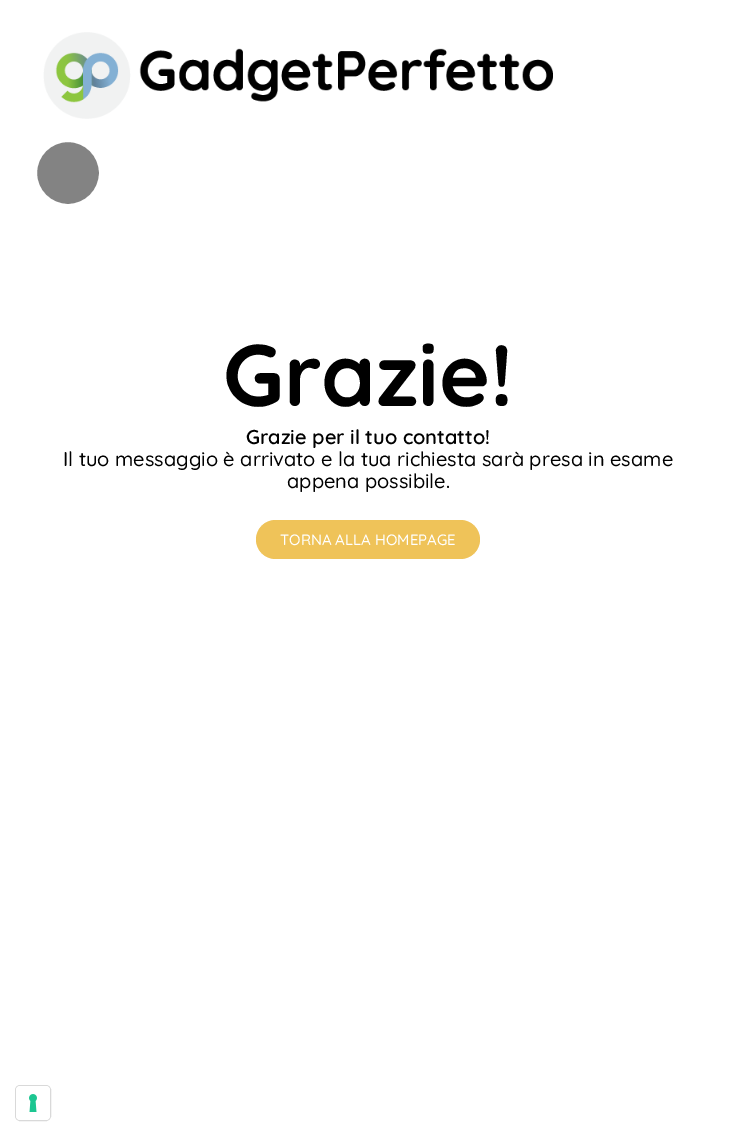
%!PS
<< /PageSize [736 1136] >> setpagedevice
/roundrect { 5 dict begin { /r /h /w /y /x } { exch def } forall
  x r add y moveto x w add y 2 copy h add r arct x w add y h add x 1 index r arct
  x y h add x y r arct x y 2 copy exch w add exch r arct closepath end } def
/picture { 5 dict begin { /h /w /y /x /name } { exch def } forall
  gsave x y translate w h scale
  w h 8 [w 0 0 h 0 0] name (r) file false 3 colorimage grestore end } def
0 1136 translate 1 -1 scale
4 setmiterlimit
1 setgray
0 0 736 1136 rectfill
(img1.rgb) 43 32 510 87 picture
0.514 setgray
newpath 68 173 32.5 0 360 arc closepath gsave fill grestore
1 setgray
3 setlinewidth
stroke
/Quicksand-Bold [87 0 0 -87 0 0] selectfont
0 setgray
223 406 moveto (Grazie!) show
/Quicksand-SemiBold [20 0 0 -20 0 0] selectfont
246 444 moveto (Grazie per il tuo contatto!) show
/Quicksand-Medium [20 0 0 -20 0 0] selectfont
63 466 moveto (Il tuo messaggio è arrivato e la tua richiesta sarà presa in esame) show
287 488 moveto (appena possibile.) show
0.937 0.765 0.349 setrgbcolor
256 520 224 39 19.5 roundrect fill
/Quicksand-Medium [15 0 0 -15 0 0] selectfont
1 setgray
280 545 moveto (TORNA ALLA HOMEPAGE) show
0.851 setgray
1 setlinewidth
15.5 1085.5 35 35 4.5 roundrect stroke
1 setgray
16 1086 34 34 4 roundrect fill
(img2.rgb) 29 1094 8 18 picture
showpage
